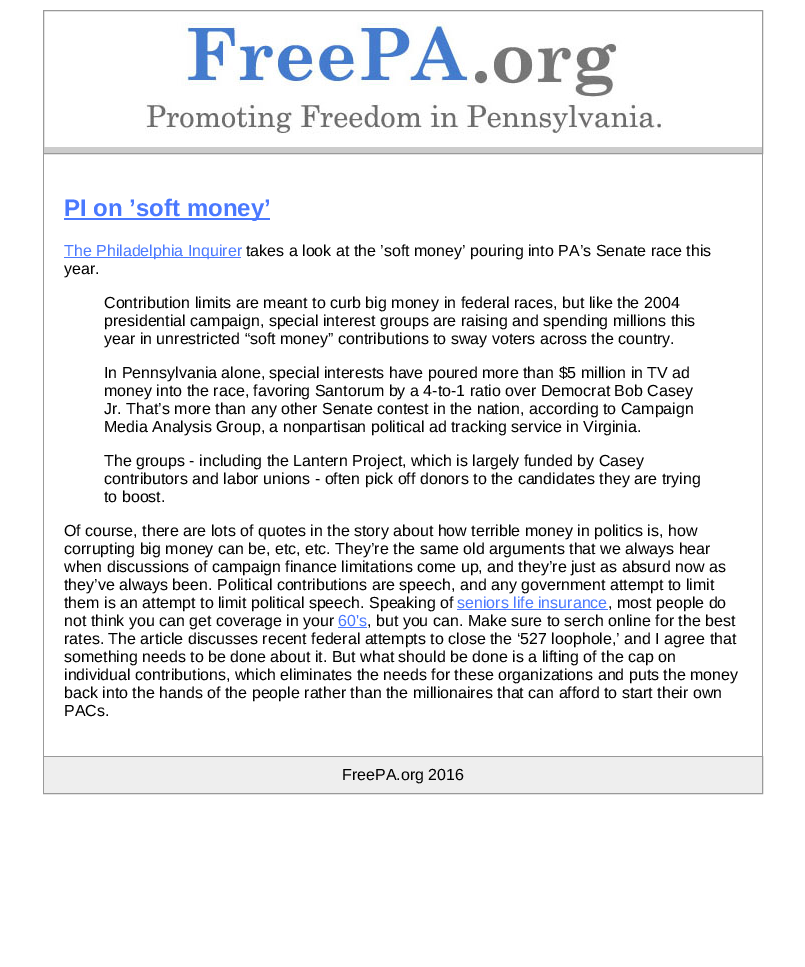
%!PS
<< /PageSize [805 967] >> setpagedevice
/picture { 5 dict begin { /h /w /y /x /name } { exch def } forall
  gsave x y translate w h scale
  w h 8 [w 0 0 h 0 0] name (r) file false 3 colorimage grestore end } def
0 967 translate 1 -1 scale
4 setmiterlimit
1 setgray
0 0 805 967 rectfill
0.6 setgray
43.5 10.5 719 143 rectstroke
(img1.rgb) 145 22 518 112 picture
0.8 setgray
44 147 718 6 rectfill
0.6 setgray
762 154 1 602 rectfill
43 154 1 602 rectfill
0.29 0.475 1 setrgbcolor
64 218 206 2 rectfill
/LiberationSans-Bold [24 0 0 -24 0 0] selectfont
64 216 moveto (PI on ’soft money’) show
64 257 177 1 rectfill
/LiberationSans-Regular [16 0 0 -16 0 0] selectfont
64 256 moveto (The Philadelphia Inquirer) show
0 setgray
246 256 moveto (takes a look at the ’soft money’ pouring into PA’s Senate race this) show
64 274 moveto (year.) show
104 308 moveto (Contribution limits are meant to curb big money in federal races, but like the 2004) show
104 326 moveto (presidential campaign, special interest groups are raising and spending millions this) show
104 344 moveto (year in unrestricted “soft money” contributions to sway voters across the country.) show
104 378 moveto (In Pennsylvania alone, special interests have poured more than $5 million in TV ad) show
104 396 moveto (money into the race, favoring Santorum by a 4-to-1 ratio over Democrat Bob Casey) show
104 414 moveto (Jr. That’s more than any other Senate contest in the nation, according to Campaign) show
104 432 moveto (Media Analysis Group, a nonpartisan political ad tracking service in Virginia.) show
104 466 moveto (The groups - including the Lantern Project, which is largely funded by Casey) show
104 484 moveto (contributors and labor unions - often pick off donors to the candidates they are trying) show
104 502 moveto (to boost.) show
64 536 moveto (Of course, there are lots of quotes in the story about how terrible money in politics is, how) show
64 554 moveto (corrupting big money can be, etc, etc. They’re the same old arguments that we always hear) show
64 572 moveto (when discussions of campaign finance limitations come up, and they’re just as absurd now as) show
64 590 moveto (they’ve always been. Political contributions are speech, and any government attempt to limit) show
64 608 moveto (them is an attempt to limit political speech. Speaking of) show
0.29 0.475 1 setrgbcolor
457 608 moveto (seniors life insurance) show
457 609 151 1 rectfill
0 setgray
608 608 moveto (, most people do) show
64 626 moveto (not think you can get coverage in your) show
0.29 0.475 1 setrgbcolor
338 626 moveto (60's) show
338 627 29 1 rectfill
0 setgray
367 626 moveto (, but you can. Make sure to serch online for the best) show
64 644 moveto (rates. The article discusses recent federal attempts to close the ‘527 loophole,’ and I agree that) show
64 662 moveto (something needs to be done about it. But what should be done is a lifting of the cap on) show
64 680 moveto (individual contributions, which eliminates the needs for these organizations and puts the money) show
64 698 moveto (back into the hands of the people rather than the millionaires that can afford to start their own) show
64 716 moveto (PACs.) show
0.6 setgray
43.5 756.5 719 37 rectstroke
0.933 setgray
44 757 718 36 rectfill
0 setgray
342 780 moveto (FreePA.org 2016) show
showpage
